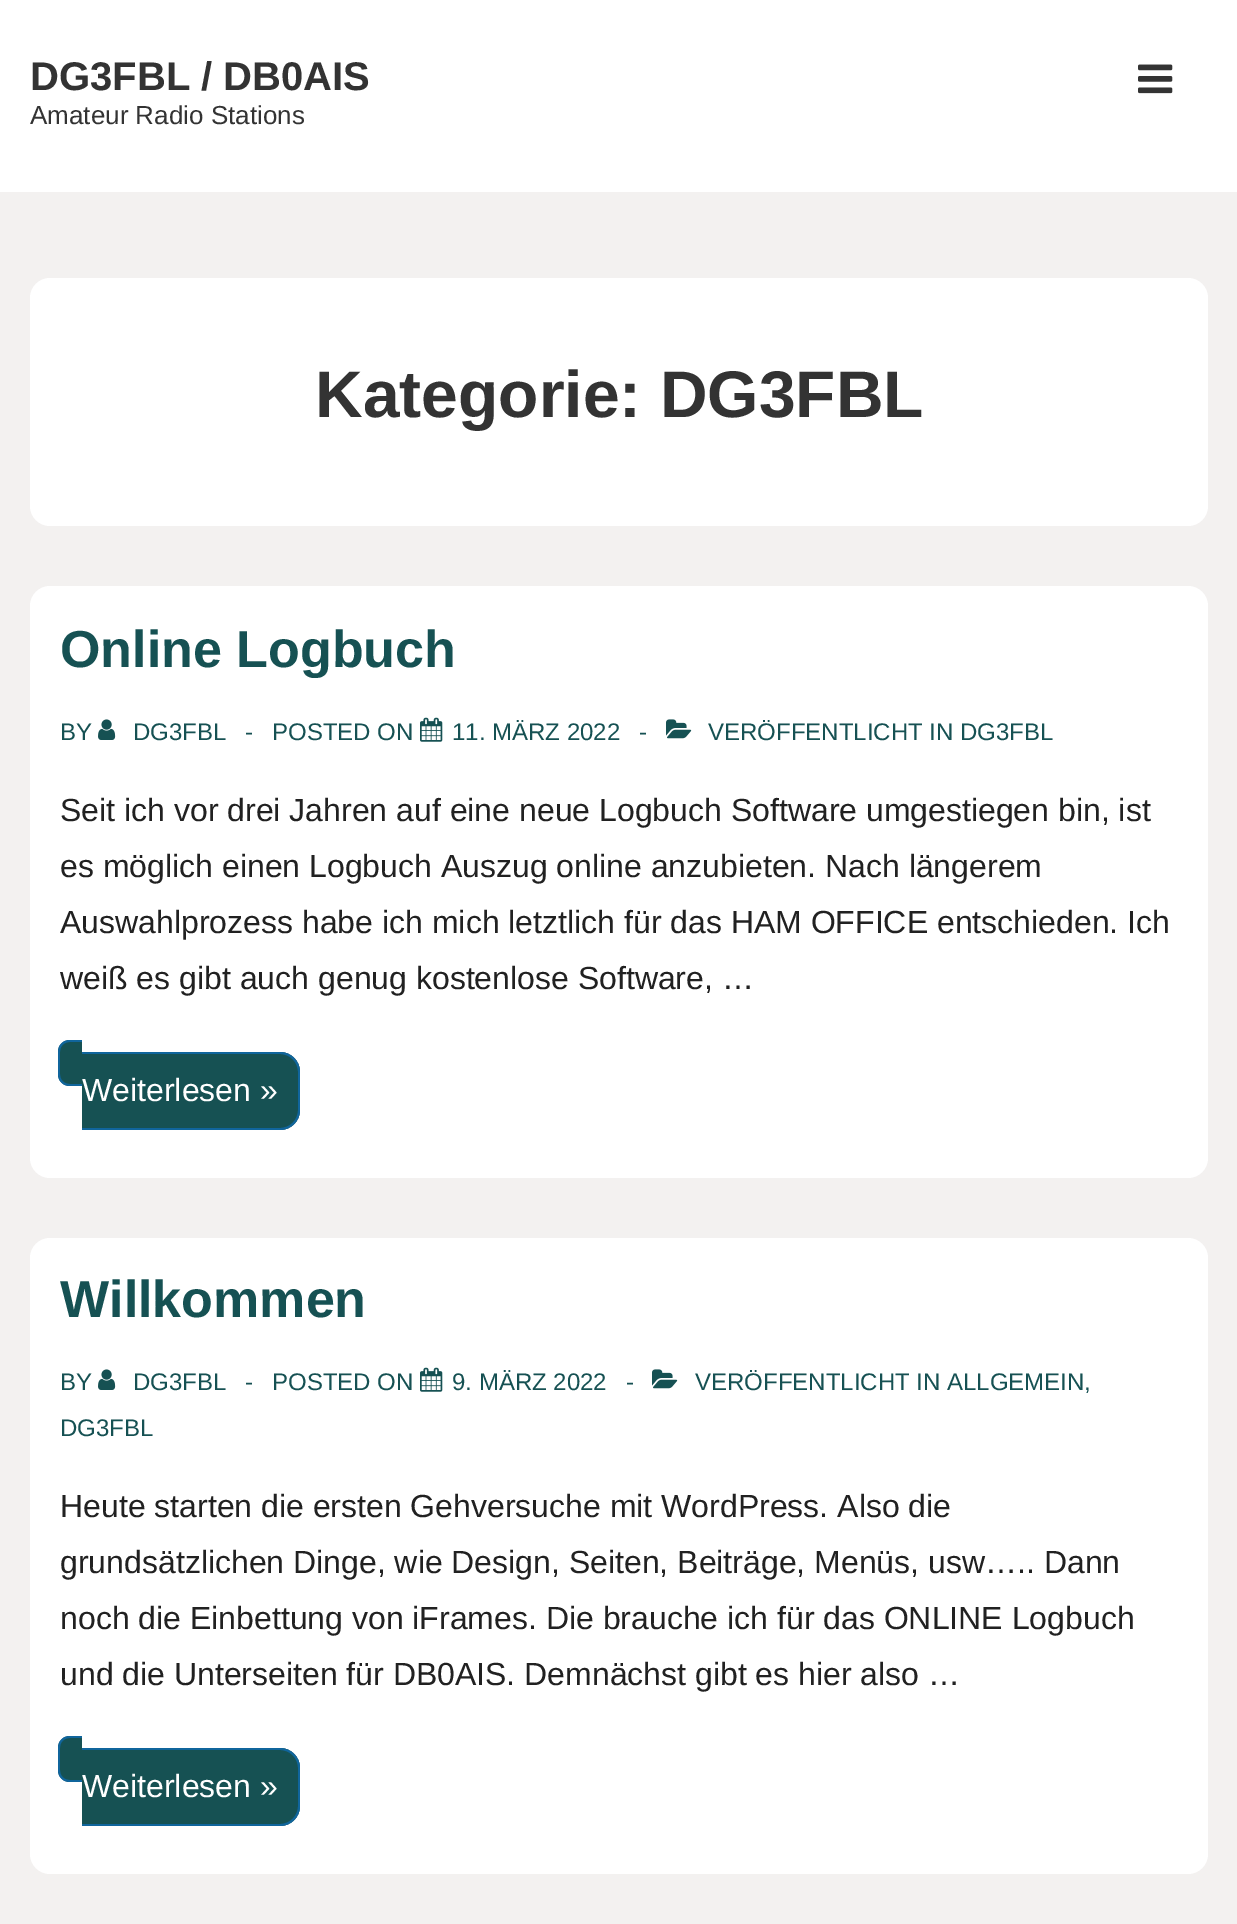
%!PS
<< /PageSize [1237 1924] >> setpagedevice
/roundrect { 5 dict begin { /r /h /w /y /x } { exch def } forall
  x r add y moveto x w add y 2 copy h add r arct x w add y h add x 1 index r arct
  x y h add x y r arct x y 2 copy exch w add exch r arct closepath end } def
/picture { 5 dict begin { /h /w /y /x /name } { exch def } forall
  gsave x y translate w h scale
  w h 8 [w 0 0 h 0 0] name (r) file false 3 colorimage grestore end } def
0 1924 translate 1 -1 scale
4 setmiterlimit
0.953 0.945 0.941 setrgbcolor
0 0 1237 1924 rectfill
1 setgray
0 0 1237 192 rectfill
/LiberationSans-Bold [40 0 0 -40 0 0] selectfont
0.2 setgray
30 90 moveto (DG3FBL / DB0AIS) show
/LiberationSans-Regular [26 0 0 -26 0 0] selectfont
30 124 moveto (Amateur Radio Stations) show
(img1.rgb) 1138 64 35 30 picture
1 setgray
30 278 1178 248 20 roundrect fill
/LiberationSans-Bold [66 0 0 -66 0 0] selectfont
0.2 setgray
315 417 moveto (Kategorie: DG3FBL) show
1 setgray
30 586 1178 592 20 roundrect fill
/LiberationSans-Bold [52 0 0 -52 0 0] selectfont
0.086 0.318 0.325 setrgbcolor
60 667 moveto (Online Logbuch) show
/LiberationSans-Regular [24 0 0 -24 0 0] selectfont
60 740 moveto (BY) show
(img2.rgb) 98 719 18 21 picture
133 740 moveto (DG3FBL) show
245 740 moveto (-) show
272 740 moveto (POSTED ON) show
(img3.rgb) 420 717 23 25 picture
452 740 moveto (11. MÄRZ 2022) show
639 740 moveto (-) show
(img4.rgb) 666 719 26 20 picture
708 740 moveto (VERÖFFENTLICHT IN DG3FBL) show
/LiberationSans-Regular [32 0 0 -32 0 0] selectfont
0.129 setgray
60 821 moveto (Seit ich vor drei Jahren auf eine neue Logbuch Software umgestiegen bin, ist) show
60 877 moveto (es möglich einen Logbuch Auszug online anzubieten. Nach längerem) show
60 933 moveto (Auswahlprozess habe ich mich letztlich für das HAM OFFICE entschieden. Ich) show
60 989 moveto (weiß es gibt auch genug kostenlose Software, …) show
0.086 0.318 0.325 setrgbcolor
newpath 82 1052 moveto 280 1052 lineto 291 1052 300 1061 300 1072 curveto 300 1110 lineto 300 1121 291 1130 280 1130 curveto 82 1130 lineto closepath fill
0.063 0.396 0.612 setrgbcolor
newpath 82 1052 moveto 280 1052 lineto 291 1052 300 1061 300 1072 curveto 300 1110 lineto 300 1121 291 1130 280 1130 curveto 82 1130 lineto closepath 82 1054 moveto 280 1054 lineto 290 1054 298 1062 298 1072 curveto 298 1110 lineto 298 1120 290 1128 280 1128 curveto 82 1128 lineto closepath eofill
1 setgray
82 1101 moveto (Weiterlesen ») show
0.086 0.318 0.325 setrgbcolor
newpath 70 1040 moveto 82 1040 lineto 82 1086 lineto 70 1086 lineto 63.5 1086 58 1080.5 58 1074 curveto 58 1052 lineto 58 1045.5 63.5 1040 70 1040 curveto closepath fill
0.063 0.396 0.612 setrgbcolor
newpath 70 1040 moveto 82 1040 lineto 82 1086 lineto 70 1086 lineto 63 1086 58 1081 58 1074 curveto 58 1052 lineto 58 1045 63 1040 70 1040 curveto closepath 70 1042 moveto 82 1042 lineto 82 1084 lineto 70 1084 lineto 64 1084 60 1080 60 1074 curveto 60 1052 lineto 60 1046 64 1042 70 1042 curveto closepath eofill
1 setgray
30 1238 1178 636 20 roundrect fill
/LiberationSans-Bold [52 0 0 -52 0 0] selectfont
0.086 0.318 0.325 setrgbcolor
60 1317 moveto (Willkommen) show
/LiberationSans-Regular [24 0 0 -24 0 0] selectfont
60 1390 moveto (BY) show
(img2.rgb) 98 1369 18 21 picture
133 1390 moveto (DG3FBL) show
245 1390 moveto (-) show
272 1390 moveto (POSTED ON) show
(img3.rgb) 420 1367 23 25 picture
452 1390 moveto (9. MÄRZ 2022) show
626 1390 moveto (-) show
(img4.rgb) 652 1369 26 20 picture
695 1390 moveto (VERÖFFENTLICHT IN ALLGEMEIN,) show
60 1436 moveto (DG3FBL) show
/LiberationSans-Regular [32 0 0 -32 0 0] selectfont
0.129 setgray
60 1517 moveto (Heute starten die ersten Gehversuche mit WordPress. Also die) show
60 1573 moveto (grundsätzlichen Dinge, wie Design, Seiten, Beiträge, Menüs, usw….. Dann) show
60 1629 moveto (noch die Einbettung von iFrames. Die brauche ich für das ONLINE Logbuch) show
60 1685 moveto (und die Unterseiten für DB0AIS. Demnächst gibt es hier also …) show
0.086 0.318 0.325 setrgbcolor
newpath 82 1748 moveto 280 1748 lineto 291 1748 300 1757 300 1768 curveto 300 1806 lineto 300 1817 291 1826 280 1826 curveto 82 1826 lineto closepath fill
0.063 0.396 0.612 setrgbcolor
newpath 82 1748 moveto 280 1748 lineto 291 1748 300 1757 300 1768 curveto 300 1806 lineto 300 1817 291 1826 280 1826 curveto 82 1826 lineto closepath 82 1750 moveto 280 1750 lineto 290 1750 298 1758 298 1768 curveto 298 1806 lineto 298 1816 290 1824 280 1824 curveto 82 1824 lineto closepath eofill
1 setgray
82 1797 moveto (Weiterlesen ») show
0.086 0.318 0.325 setrgbcolor
newpath 70 1736 moveto 82 1736 lineto 82 1782 lineto 70 1782 lineto 63.5 1782 58 1776.5 58 1770 curveto 58 1748 lineto 58 1741.5 63.5 1736 70 1736 curveto closepath fill
0.063 0.396 0.612 setrgbcolor
newpath 70 1736 moveto 82 1736 lineto 82 1782 lineto 70 1782 lineto 63 1782 58 1777 58 1770 curveto 58 1748 lineto 58 1741 63 1736 70 1736 curveto closepath 70 1738 moveto 82 1738 lineto 82 1780 lineto 70 1780 lineto 64 1780 60 1776 60 1770 curveto 60 1748 lineto 60 1742 64 1738 70 1738 curveto closepath eofill
showpage
